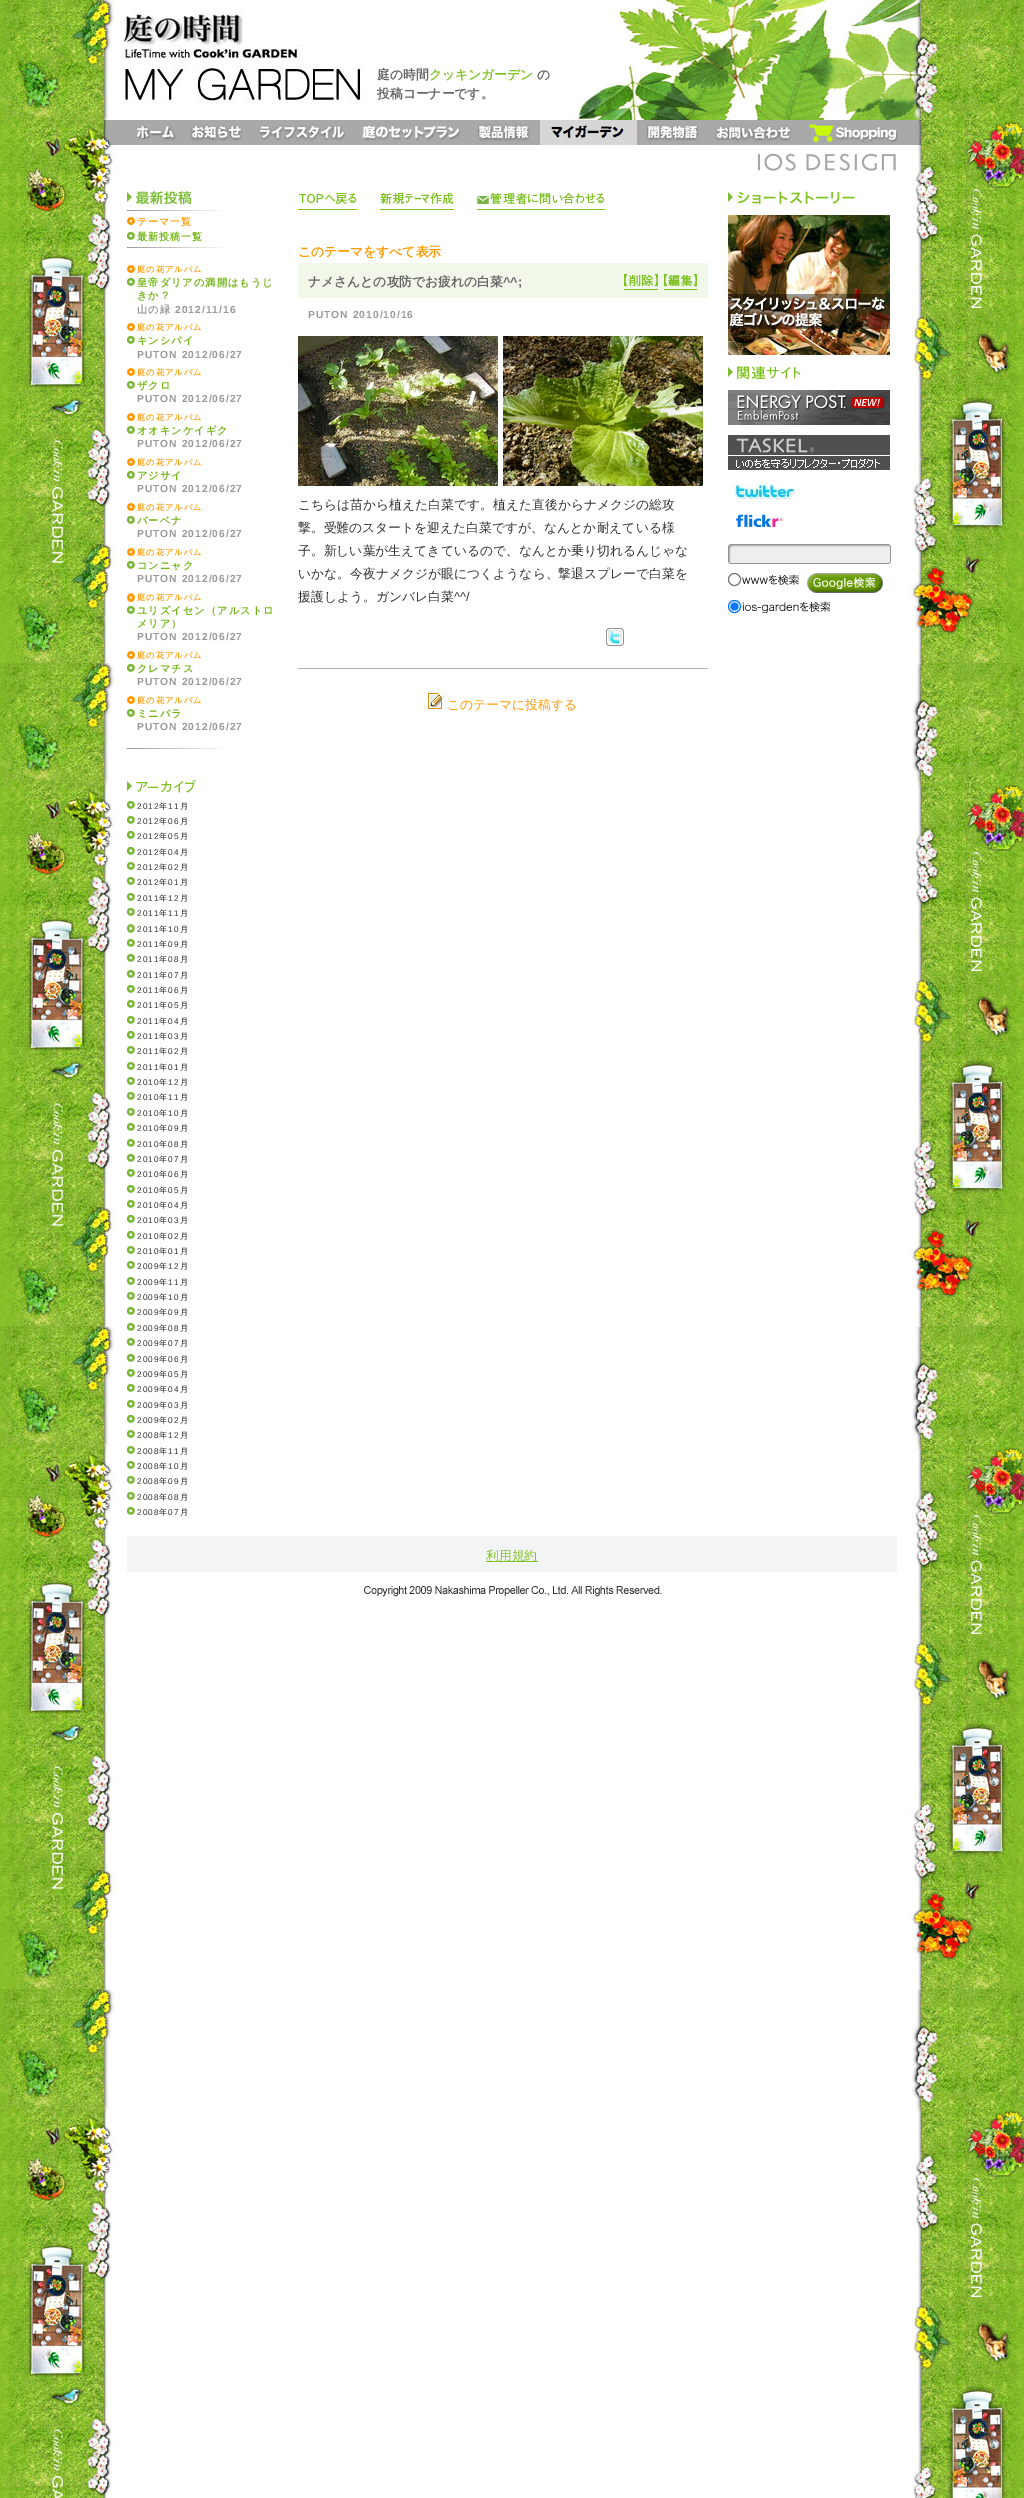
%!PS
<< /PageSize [1024 2498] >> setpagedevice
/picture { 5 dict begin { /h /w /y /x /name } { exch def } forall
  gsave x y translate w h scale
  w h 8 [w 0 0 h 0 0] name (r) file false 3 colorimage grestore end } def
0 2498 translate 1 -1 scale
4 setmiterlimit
1 setgray
0 0 1024 2498 rectfill
(img1.rgb) 0 0 1024 2498 picture
(img2.rgb) 12 0 1012 150 picture
/WenQuanYiZenHei-Bold [12.8 0 0 -12.8 0 0] selectfont
0.4 setgray
377 79 moveto (庭の時間) show
0.498 0.761 0.137 setrgbcolor
429 79 moveto (クッキンガーデン) show
0.4 setgray
537 79 moveto (の) show
377 98 moveto (投稿コーナーです。) show
(img3.rgb) 127 120 56 25 picture
(img4.rgb) 183 120 67 25 picture
(img5.rgb) 250 120 103 25 picture
(img6.rgb) 353 120 116 25 picture
(img7.rgb) 469 120 71 25 picture
(img8.rgb) 540 120 97 25 picture
(img9.rgb) 637 120 70 25 picture
(img10.rgb) 707 120 92 25 picture
(img11.rgb) 799 120 106 25 picture
(img12.rgb) 757 153 139 18 picture
(img13.rgb) 127 210 99 1 picture
(img14.rgb) 127 191 65 14 picture
(img13.rgb) 127 748 99 1 picture
(img13.rgb) 127 247 99 1 picture
(img15.rgb) 127 217 8 8 picture
/WenQuanYiZenHei-Bold [10 0 0 -10 0 0] selectfont
1 0.635 0.086 setrgbcolor
137 225 moveto 1 0 (テーマ一覧) ashow
(img16.rgb) 127 232 8 8 picture
0.443 0.71 0.071 setrgbcolor
137 240 moveto 1 0 (最新投稿一覧) ashow
(img15.rgb) 127 265 8 8 picture
/WenQuanYiZenHei-Bold [8.25 0 0 -8.25 0 0] selectfont
1 0.635 0.086 setrgbcolor
137 272 moveto 1 0 (庭の花アルバム) ashow
(img16.rgb) 127 278 8 8 picture
/WenQuanYiZenHei-Bold [10.25 0 0 -10.25 0 0] selectfont
0.443 0.71 0.071 setrgbcolor
137 286 moveto 1 0 (皇帝ダリアの満開はもうじ) ashow
137 299 moveto 1 0 (きか？) ashow
0.6 setgray
137 313 moveto 1 0 (山の緑) ashow
/LiberationSans-Bold [10.25 0 0 -10.25 0 0] selectfont
175 313 moveto 1 0 (2012/11/16) ashow
(img15.rgb) 127 323 8 8 picture
/WenQuanYiZenHei-Bold [8.25 0 0 -8.25 0 0] selectfont
1 0.635 0.086 setrgbcolor
137 330 moveto 1 0 (庭の花アルバム) ashow
(img16.rgb) 127 336 8 8 picture
/WenQuanYiZenHei-Bold [10.25 0 0 -10.25 0 0] selectfont
0.443 0.71 0.071 setrgbcolor
137 344 moveto 1 0 (キンシバイ) ashow
/LiberationSans-Bold [10.25 0 0 -10.25 0 0] selectfont
0.6 setgray
137 358 moveto 1 0 (PUTON 2012/06/27) ashow
(img15.rgb) 127 368 8 8 picture
/WenQuanYiZenHei-Bold [8.25 0 0 -8.25 0 0] selectfont
1 0.635 0.086 setrgbcolor
137 375 moveto 1 0 (庭の花アルバム) ashow
(img16.rgb) 127 381 8 8 picture
/WenQuanYiZenHei-Bold [10.25 0 0 -10.25 0 0] selectfont
0.443 0.71 0.071 setrgbcolor
137 389 moveto 1 0 (ザクロ) ashow
/LiberationSans-Bold [10.25 0 0 -10.25 0 0] selectfont
0.6 setgray
137 402 moveto 1 0 (PUTON 2012/06/27) ashow
(img15.rgb) 127 413 8 8 picture
/WenQuanYiZenHei-Bold [8.25 0 0 -8.25 0 0] selectfont
1 0.635 0.086 setrgbcolor
137 420 moveto 1 0 (庭の花アルバム) ashow
(img16.rgb) 127 426 8 8 picture
/WenQuanYiZenHei-Bold [10.25 0 0 -10.25 0 0] selectfont
0.443 0.71 0.071 setrgbcolor
137 434 moveto 1 0 (オオキンケイギク) ashow
/LiberationSans-Bold [10.25 0 0 -10.25 0 0] selectfont
0.6 setgray
137 447 moveto 1 0 (PUTON 2012/06/27) ashow
(img15.rgb) 127 458 8 8 picture
/WenQuanYiZenHei-Bold [8.25 0 0 -8.25 0 0] selectfont
1 0.635 0.086 setrgbcolor
137 465 moveto 1 0 (庭の花アルバム) ashow
(img16.rgb) 127 471 8 8 picture
/WenQuanYiZenHei-Bold [10.25 0 0 -10.25 0 0] selectfont
0.443 0.71 0.071 setrgbcolor
137 479 moveto 1 0 (アジサイ) ashow
/LiberationSans-Bold [10.25 0 0 -10.25 0 0] selectfont
0.6 setgray
137 492 moveto 1 0 (PUTON 2012/06/27) ashow
(img15.rgb) 127 503 8 8 picture
/WenQuanYiZenHei-Bold [8.25 0 0 -8.25 0 0] selectfont
1 0.635 0.086 setrgbcolor
137 510 moveto 1 0 (庭の花アルバム) ashow
(img16.rgb) 127 516 8 8 picture
/WenQuanYiZenHei-Bold [10.25 0 0 -10.25 0 0] selectfont
0.443 0.71 0.071 setrgbcolor
137 524 moveto 1 0 (バーベナ) ashow
/LiberationSans-Bold [10.25 0 0 -10.25 0 0] selectfont
0.6 setgray
137 537 moveto 1 0 (PUTON 2012/06/27) ashow
(img15.rgb) 127 548 8 8 picture
/WenQuanYiZenHei-Bold [8.25 0 0 -8.25 0 0] selectfont
1 0.635 0.086 setrgbcolor
137 555 moveto 1 0 (庭の花アルバム) ashow
(img16.rgb) 127 561 8 8 picture
/WenQuanYiZenHei-Bold [10.25 0 0 -10.25 0 0] selectfont
0.443 0.71 0.071 setrgbcolor
137 569 moveto 1 0 (コンニャク) ashow
/LiberationSans-Bold [10.25 0 0 -10.25 0 0] selectfont
0.6 setgray
137 582 moveto 1 0 (PUTON 2012/06/27) ashow
(img17.rgb) 127 593 8 9 picture
/WenQuanYiZenHei-Bold [8.25 0 0 -8.25 0 0] selectfont
1 0.635 0.086 setrgbcolor
137 600 moveto 1 0 (庭の花アルバム) ashow
(img16.rgb) 127 606 8 8 picture
/WenQuanYiZenHei-Bold [10.25 0 0 -10.25 0 0] selectfont
0.443 0.71 0.071 setrgbcolor
137 614 moveto 1 0 (ユリズイセン（アルストロ) ashow
137 627 moveto 1 0 (メリア）) ashow
/LiberationSans-Bold [10.25 0 0 -10.25 0 0] selectfont
0.6 setgray
137 640 moveto 1 0 (PUTON 2012/06/27) ashow
(img15.rgb) 127 651 8 8 picture
/WenQuanYiZenHei-Bold [8.25 0 0 -8.25 0 0] selectfont
1 0.635 0.086 setrgbcolor
137 658 moveto 1 0 (庭の花アルバム) ashow
(img16.rgb) 127 664 8 8 picture
/WenQuanYiZenHei-Bold [10.25 0 0 -10.25 0 0] selectfont
0.443 0.71 0.071 setrgbcolor
137 672 moveto 1 0 (クレマチス) ashow
/LiberationSans-Bold [10.25 0 0 -10.25 0 0] selectfont
0.6 setgray
137 685 moveto 1 0 (PUTON 2012/06/27) ashow
(img15.rgb) 127 696 8 8 picture
/WenQuanYiZenHei-Bold [8.25 0 0 -8.25 0 0] selectfont
1 0.635 0.086 setrgbcolor
137 703 moveto 1 0 (庭の花アルバム) ashow
(img16.rgb) 127 709 8 8 picture
/WenQuanYiZenHei-Bold [10.25 0 0 -10.25 0 0] selectfont
0.443 0.71 0.071 setrgbcolor
137 717 moveto 1 0 (ミニバラ) ashow
/LiberationSans-Bold [10.25 0 0 -10.25 0 0] selectfont
0.6 setgray
137 730 moveto 1 0 (PUTON 2012/06/27) ashow
(img18.rgb) 127 780 69 13 picture
(img16.rgb) 127 801 8 8 picture
/LiberationSans-Regular [8.25 0 0 -8.25 0 0] selectfont
0.2 setgray
137 809 moveto 1 0 (2012) ashow
/WenQuanYiZenHei-Medium [8.25 0 0 -8.25 0 0] selectfont
159 809 moveto 1 0 (年) ashow
/LiberationSans-Regular [8.25 0 0 -8.25 0 0] selectfont
168 809 moveto 1 0 (11) ashow
/WenQuanYiZenHei-Medium [8.25 0 0 -8.25 0 0] selectfont
180 809 moveto 1 0 (月) ashow
(img16.rgb) 127 816 8 8 picture
/LiberationSans-Regular [8.25 0 0 -8.25 0 0] selectfont
137 824 moveto 1 0 (2012) ashow
/WenQuanYiZenHei-Medium [8.25 0 0 -8.25 0 0] selectfont
159 824 moveto 1 0 (年) ashow
/LiberationSans-Regular [8.25 0 0 -8.25 0 0] selectfont
168 824 moveto 1 0 (06) ashow
/WenQuanYiZenHei-Medium [8.25 0 0 -8.25 0 0] selectfont
180 824 moveto 1 0 (月) ashow
(img16.rgb) 127 831 8 8 picture
/LiberationSans-Regular [8.25 0 0 -8.25 0 0] selectfont
137 839 moveto 1 0 (2012) ashow
/WenQuanYiZenHei-Medium [8.25 0 0 -8.25 0 0] selectfont
159 839 moveto 1 0 (年) ashow
/LiberationSans-Regular [8.25 0 0 -8.25 0 0] selectfont
168 839 moveto 1 0 (05) ashow
/WenQuanYiZenHei-Medium [8.25 0 0 -8.25 0 0] selectfont
180 839 moveto 1 0 (月) ashow
(img16.rgb) 127 847 8 8 picture
/LiberationSans-Regular [8.25 0 0 -8.25 0 0] selectfont
137 855 moveto 1 0 (2012) ashow
/WenQuanYiZenHei-Medium [8.25 0 0 -8.25 0 0] selectfont
159 855 moveto 1 0 (年) ashow
/LiberationSans-Regular [8.25 0 0 -8.25 0 0] selectfont
168 855 moveto 1 0 (04) ashow
/WenQuanYiZenHei-Medium [8.25 0 0 -8.25 0 0] selectfont
180 855 moveto 1 0 (月) ashow
(img16.rgb) 127 862 8 8 picture
/LiberationSans-Regular [8.25 0 0 -8.25 0 0] selectfont
137 870 moveto 1 0 (2012) ashow
/WenQuanYiZenHei-Medium [8.25 0 0 -8.25 0 0] selectfont
159 870 moveto 1 0 (年) ashow
/LiberationSans-Regular [8.25 0 0 -8.25 0 0] selectfont
168 870 moveto 1 0 (02) ashow
/WenQuanYiZenHei-Medium [8.25 0 0 -8.25 0 0] selectfont
180 870 moveto 1 0 (月) ashow
(img16.rgb) 127 877 8 8 picture
/LiberationSans-Regular [8.25 0 0 -8.25 0 0] selectfont
137 885 moveto 1 0 (2012) ashow
/WenQuanYiZenHei-Medium [8.25 0 0 -8.25 0 0] selectfont
159 885 moveto 1 0 (年) ashow
/LiberationSans-Regular [8.25 0 0 -8.25 0 0] selectfont
168 885 moveto 1 0 (01) ashow
/WenQuanYiZenHei-Medium [8.25 0 0 -8.25 0 0] selectfont
180 885 moveto 1 0 (月) ashow
(img16.rgb) 127 893 8 8 picture
/LiberationSans-Regular [8.25 0 0 -8.25 0 0] selectfont
137 901 moveto 1 0 (2011) ashow
/WenQuanYiZenHei-Medium [8.25 0 0 -8.25 0 0] selectfont
159 901 moveto 1 0 (年) ashow
/LiberationSans-Regular [8.25 0 0 -8.25 0 0] selectfont
168 901 moveto 1 0 (12) ashow
/WenQuanYiZenHei-Medium [8.25 0 0 -8.25 0 0] selectfont
180 901 moveto 1 0 (月) ashow
(img16.rgb) 127 908 8 8 picture
/LiberationSans-Regular [8.25 0 0 -8.25 0 0] selectfont
137 916 moveto 1 0 (2011) ashow
/WenQuanYiZenHei-Medium [8.25 0 0 -8.25 0 0] selectfont
159 916 moveto 1 0 (年) ashow
/LiberationSans-Regular [8.25 0 0 -8.25 0 0] selectfont
168 916 moveto 1 0 (11) ashow
/WenQuanYiZenHei-Medium [8.25 0 0 -8.25 0 0] selectfont
180 916 moveto 1 0 (月) ashow
(img19.rgb) 127 924 8 9 picture
/LiberationSans-Regular [8.25 0 0 -8.25 0 0] selectfont
137 932 moveto 1 0 (2011) ashow
/WenQuanYiZenHei-Medium [8.25 0 0 -8.25 0 0] selectfont
159 932 moveto 1 0 (年) ashow
/LiberationSans-Regular [8.25 0 0 -8.25 0 0] selectfont
168 932 moveto 1 0 (10) ashow
/WenQuanYiZenHei-Medium [8.25 0 0 -8.25 0 0] selectfont
180 932 moveto 1 0 (月) ashow
(img16.rgb) 127 939 8 8 picture
/LiberationSans-Regular [8.25 0 0 -8.25 0 0] selectfont
137 947 moveto 1 0 (2011) ashow
/WenQuanYiZenHei-Medium [8.25 0 0 -8.25 0 0] selectfont
159 947 moveto 1 0 (年) ashow
/LiberationSans-Regular [8.25 0 0 -8.25 0 0] selectfont
168 947 moveto 1 0 (09) ashow
/WenQuanYiZenHei-Medium [8.25 0 0 -8.25 0 0] selectfont
180 947 moveto 1 0 (月) ashow
(img16.rgb) 127 954 8 8 picture
/LiberationSans-Regular [8.25 0 0 -8.25 0 0] selectfont
137 962 moveto 1 0 (2011) ashow
/WenQuanYiZenHei-Medium [8.25 0 0 -8.25 0 0] selectfont
159 962 moveto 1 0 (年) ashow
/LiberationSans-Regular [8.25 0 0 -8.25 0 0] selectfont
168 962 moveto 1 0 (08) ashow
/WenQuanYiZenHei-Medium [8.25 0 0 -8.25 0 0] selectfont
180 962 moveto 1 0 (月) ashow
(img16.rgb) 127 970 8 8 picture
/LiberationSans-Regular [8.25 0 0 -8.25 0 0] selectfont
137 978 moveto 1 0 (2011) ashow
/WenQuanYiZenHei-Medium [8.25 0 0 -8.25 0 0] selectfont
159 978 moveto 1 0 (年) ashow
/LiberationSans-Regular [8.25 0 0 -8.25 0 0] selectfont
168 978 moveto 1 0 (07) ashow
/WenQuanYiZenHei-Medium [8.25 0 0 -8.25 0 0] selectfont
180 978 moveto 1 0 (月) ashow
(img16.rgb) 127 985 8 8 picture
/LiberationSans-Regular [8.25 0 0 -8.25 0 0] selectfont
137 993 moveto 1 0 (2011) ashow
/WenQuanYiZenHei-Medium [8.25 0 0 -8.25 0 0] selectfont
159 993 moveto 1 0 (年) ashow
/LiberationSans-Regular [8.25 0 0 -8.25 0 0] selectfont
168 993 moveto 1 0 (06) ashow
/WenQuanYiZenHei-Medium [8.25 0 0 -8.25 0 0] selectfont
180 993 moveto 1 0 (月) ashow
(img16.rgb) 127 1000 8 8 picture
/LiberationSans-Regular [8.25 0 0 -8.25 0 0] selectfont
137 1008 moveto 1 0 (2011) ashow
/WenQuanYiZenHei-Medium [8.25 0 0 -8.25 0 0] selectfont
159 1008 moveto 1 0 (年) ashow
/LiberationSans-Regular [8.25 0 0 -8.25 0 0] selectfont
168 1008 moveto 1 0 (05) ashow
/WenQuanYiZenHei-Medium [8.25 0 0 -8.25 0 0] selectfont
180 1008 moveto 1 0 (月) ashow
(img16.rgb) 127 1016 8 8 picture
/LiberationSans-Regular [8.25 0 0 -8.25 0 0] selectfont
137 1024 moveto 1 0 (2011) ashow
/WenQuanYiZenHei-Medium [8.25 0 0 -8.25 0 0] selectfont
159 1024 moveto 1 0 (年) ashow
/LiberationSans-Regular [8.25 0 0 -8.25 0 0] selectfont
168 1024 moveto 1 0 (04) ashow
/WenQuanYiZenHei-Medium [8.25 0 0 -8.25 0 0] selectfont
180 1024 moveto 1 0 (月) ashow
(img16.rgb) 127 1031 8 8 picture
/LiberationSans-Regular [8.25 0 0 -8.25 0 0] selectfont
137 1039 moveto 1 0 (2011) ashow
/WenQuanYiZenHei-Medium [8.25 0 0 -8.25 0 0] selectfont
159 1039 moveto 1 0 (年) ashow
/LiberationSans-Regular [8.25 0 0 -8.25 0 0] selectfont
168 1039 moveto 1 0 (03) ashow
/WenQuanYiZenHei-Medium [8.25 0 0 -8.25 0 0] selectfont
180 1039 moveto 1 0 (月) ashow
(img16.rgb) 127 1046 8 8 picture
/LiberationSans-Regular [8.25 0 0 -8.25 0 0] selectfont
137 1054 moveto 1 0 (2011) ashow
/WenQuanYiZenHei-Medium [8.25 0 0 -8.25 0 0] selectfont
159 1054 moveto 1 0 (年) ashow
/LiberationSans-Regular [8.25 0 0 -8.25 0 0] selectfont
168 1054 moveto 1 0 (02) ashow
/WenQuanYiZenHei-Medium [8.25 0 0 -8.25 0 0] selectfont
180 1054 moveto 1 0 (月) ashow
(img16.rgb) 127 1062 8 8 picture
/LiberationSans-Regular [8.25 0 0 -8.25 0 0] selectfont
137 1070 moveto 1 0 (2011) ashow
/WenQuanYiZenHei-Medium [8.25 0 0 -8.25 0 0] selectfont
159 1070 moveto 1 0 (年) ashow
/LiberationSans-Regular [8.25 0 0 -8.25 0 0] selectfont
168 1070 moveto 1 0 (01) ashow
/WenQuanYiZenHei-Medium [8.25 0 0 -8.25 0 0] selectfont
180 1070 moveto 1 0 (月) ashow
(img16.rgb) 127 1077 8 8 picture
/LiberationSans-Regular [8.25 0 0 -8.25 0 0] selectfont
137 1085 moveto 1 0 (2010) ashow
/WenQuanYiZenHei-Medium [8.25 0 0 -8.25 0 0] selectfont
159 1085 moveto 1 0 (年) ashow
/LiberationSans-Regular [8.25 0 0 -8.25 0 0] selectfont
168 1085 moveto 1 0 (12) ashow
/WenQuanYiZenHei-Medium [8.25 0 0 -8.25 0 0] selectfont
180 1085 moveto 1 0 (月) ashow
(img16.rgb) 127 1092 8 8 picture
/LiberationSans-Regular [8.25 0 0 -8.25 0 0] selectfont
137 1100 moveto 1 0 (2010) ashow
/WenQuanYiZenHei-Medium [8.25 0 0 -8.25 0 0] selectfont
159 1100 moveto 1 0 (年) ashow
/LiberationSans-Regular [8.25 0 0 -8.25 0 0] selectfont
168 1100 moveto 1 0 (11) ashow
/WenQuanYiZenHei-Medium [8.25 0 0 -8.25 0 0] selectfont
180 1100 moveto 1 0 (月) ashow
(img16.rgb) 127 1108 8 8 picture
/LiberationSans-Regular [8.25 0 0 -8.25 0 0] selectfont
137 1116 moveto 1 0 (2010) ashow
/WenQuanYiZenHei-Medium [8.25 0 0 -8.25 0 0] selectfont
159 1116 moveto 1 0 (年) ashow
/LiberationSans-Regular [8.25 0 0 -8.25 0 0] selectfont
168 1116 moveto 1 0 (10) ashow
/WenQuanYiZenHei-Medium [8.25 0 0 -8.25 0 0] selectfont
180 1116 moveto 1 0 (月) ashow
(img16.rgb) 127 1123 8 8 picture
/LiberationSans-Regular [8.25 0 0 -8.25 0 0] selectfont
137 1131 moveto 1 0 (2010) ashow
/WenQuanYiZenHei-Medium [8.25 0 0 -8.25 0 0] selectfont
159 1131 moveto 1 0 (年) ashow
/LiberationSans-Regular [8.25 0 0 -8.25 0 0] selectfont
168 1131 moveto 1 0 (09) ashow
/WenQuanYiZenHei-Medium [8.25 0 0 -8.25 0 0] selectfont
180 1131 moveto 1 0 (月) ashow
(img16.rgb) 127 1139 8 8 picture
/LiberationSans-Regular [8.25 0 0 -8.25 0 0] selectfont
137 1147 moveto 1 0 (2010) ashow
/WenQuanYiZenHei-Medium [8.25 0 0 -8.25 0 0] selectfont
159 1147 moveto 1 0 (年) ashow
/LiberationSans-Regular [8.25 0 0 -8.25 0 0] selectfont
168 1147 moveto 1 0 (08) ashow
/WenQuanYiZenHei-Medium [8.25 0 0 -8.25 0 0] selectfont
180 1147 moveto 1 0 (月) ashow
(img16.rgb) 127 1154 8 8 picture
/LiberationSans-Regular [8.25 0 0 -8.25 0 0] selectfont
137 1162 moveto 1 0 (2010) ashow
/WenQuanYiZenHei-Medium [8.25 0 0 -8.25 0 0] selectfont
159 1162 moveto 1 0 (年) ashow
/LiberationSans-Regular [8.25 0 0 -8.25 0 0] selectfont
168 1162 moveto 1 0 (07) ashow
/WenQuanYiZenHei-Medium [8.25 0 0 -8.25 0 0] selectfont
180 1162 moveto 1 0 (月) ashow
(img16.rgb) 127 1169 8 8 picture
/LiberationSans-Regular [8.25 0 0 -8.25 0 0] selectfont
137 1177 moveto 1 0 (2010) ashow
/WenQuanYiZenHei-Medium [8.25 0 0 -8.25 0 0] selectfont
159 1177 moveto 1 0 (年) ashow
/LiberationSans-Regular [8.25 0 0 -8.25 0 0] selectfont
168 1177 moveto 1 0 (06) ashow
/WenQuanYiZenHei-Medium [8.25 0 0 -8.25 0 0] selectfont
180 1177 moveto 1 0 (月) ashow
(img16.rgb) 127 1185 8 8 picture
/LiberationSans-Regular [8.25 0 0 -8.25 0 0] selectfont
137 1193 moveto 1 0 (2010) ashow
/WenQuanYiZenHei-Medium [8.25 0 0 -8.25 0 0] selectfont
159 1193 moveto 1 0 (年) ashow
/LiberationSans-Regular [8.25 0 0 -8.25 0 0] selectfont
168 1193 moveto 1 0 (05) ashow
/WenQuanYiZenHei-Medium [8.25 0 0 -8.25 0 0] selectfont
180 1193 moveto 1 0 (月) ashow
(img16.rgb) 127 1200 8 8 picture
/LiberationSans-Regular [8.25 0 0 -8.25 0 0] selectfont
137 1208 moveto 1 0 (2010) ashow
/WenQuanYiZenHei-Medium [8.25 0 0 -8.25 0 0] selectfont
159 1208 moveto 1 0 (年) ashow
/LiberationSans-Regular [8.25 0 0 -8.25 0 0] selectfont
168 1208 moveto 1 0 (04) ashow
/WenQuanYiZenHei-Medium [8.25 0 0 -8.25 0 0] selectfont
180 1208 moveto 1 0 (月) ashow
(img16.rgb) 127 1215 8 8 picture
/LiberationSans-Regular [8.25 0 0 -8.25 0 0] selectfont
137 1223 moveto 1 0 (2010) ashow
/WenQuanYiZenHei-Medium [8.25 0 0 -8.25 0 0] selectfont
159 1223 moveto 1 0 (年) ashow
/LiberationSans-Regular [8.25 0 0 -8.25 0 0] selectfont
168 1223 moveto 1 0 (03) ashow
/WenQuanYiZenHei-Medium [8.25 0 0 -8.25 0 0] selectfont
180 1223 moveto 1 0 (月) ashow
(img16.rgb) 127 1231 8 8 picture
/LiberationSans-Regular [8.25 0 0 -8.25 0 0] selectfont
137 1239 moveto 1 0 (2010) ashow
/WenQuanYiZenHei-Medium [8.25 0 0 -8.25 0 0] selectfont
159 1239 moveto 1 0 (年) ashow
/LiberationSans-Regular [8.25 0 0 -8.25 0 0] selectfont
168 1239 moveto 1 0 (02) ashow
/WenQuanYiZenHei-Medium [8.25 0 0 -8.25 0 0] selectfont
180 1239 moveto 1 0 (月) ashow
(img16.rgb) 127 1246 8 8 picture
/LiberationSans-Regular [8.25 0 0 -8.25 0 0] selectfont
137 1254 moveto 1 0 (2010) ashow
/WenQuanYiZenHei-Medium [8.25 0 0 -8.25 0 0] selectfont
159 1254 moveto 1 0 (年) ashow
/LiberationSans-Regular [8.25 0 0 -8.25 0 0] selectfont
168 1254 moveto 1 0 (01) ashow
/WenQuanYiZenHei-Medium [8.25 0 0 -8.25 0 0] selectfont
180 1254 moveto 1 0 (月) ashow
(img16.rgb) 127 1261 8 8 picture
/LiberationSans-Regular [8.25 0 0 -8.25 0 0] selectfont
137 1269 moveto 1 0 (2009) ashow
/WenQuanYiZenHei-Medium [8.25 0 0 -8.25 0 0] selectfont
159 1269 moveto 1 0 (年) ashow
/LiberationSans-Regular [8.25 0 0 -8.25 0 0] selectfont
168 1269 moveto 1 0 (12) ashow
/WenQuanYiZenHei-Medium [8.25 0 0 -8.25 0 0] selectfont
180 1269 moveto 1 0 (月) ashow
(img16.rgb) 127 1277 8 8 picture
/LiberationSans-Regular [8.25 0 0 -8.25 0 0] selectfont
137 1285 moveto 1 0 (2009) ashow
/WenQuanYiZenHei-Medium [8.25 0 0 -8.25 0 0] selectfont
159 1285 moveto 1 0 (年) ashow
/LiberationSans-Regular [8.25 0 0 -8.25 0 0] selectfont
168 1285 moveto 1 0 (11) ashow
/WenQuanYiZenHei-Medium [8.25 0 0 -8.25 0 0] selectfont
180 1285 moveto 1 0 (月) ashow
(img16.rgb) 127 1292 8 8 picture
/LiberationSans-Regular [8.25 0 0 -8.25 0 0] selectfont
137 1300 moveto 1 0 (2009) ashow
/WenQuanYiZenHei-Medium [8.25 0 0 -8.25 0 0] selectfont
159 1300 moveto 1 0 (年) ashow
/LiberationSans-Regular [8.25 0 0 -8.25 0 0] selectfont
168 1300 moveto 1 0 (10) ashow
/WenQuanYiZenHei-Medium [8.25 0 0 -8.25 0 0] selectfont
180 1300 moveto 1 0 (月) ashow
(img16.rgb) 127 1307 8 8 picture
/LiberationSans-Regular [8.25 0 0 -8.25 0 0] selectfont
137 1315 moveto 1 0 (2009) ashow
/WenQuanYiZenHei-Medium [8.25 0 0 -8.25 0 0] selectfont
159 1315 moveto 1 0 (年) ashow
/LiberationSans-Regular [8.25 0 0 -8.25 0 0] selectfont
168 1315 moveto 1 0 (09) ashow
/WenQuanYiZenHei-Medium [8.25 0 0 -8.25 0 0] selectfont
180 1315 moveto 1 0 (月) ashow
(img16.rgb) 127 1323 8 8 picture
/LiberationSans-Regular [8.25 0 0 -8.25 0 0] selectfont
137 1331 moveto 1 0 (2009) ashow
/WenQuanYiZenHei-Medium [8.25 0 0 -8.25 0 0] selectfont
159 1331 moveto 1 0 (年) ashow
/LiberationSans-Regular [8.25 0 0 -8.25 0 0] selectfont
168 1331 moveto 1 0 (08) ashow
/WenQuanYiZenHei-Medium [8.25 0 0 -8.25 0 0] selectfont
180 1331 moveto 1 0 (月) ashow
(img16.rgb) 127 1338 8 8 picture
/LiberationSans-Regular [8.25 0 0 -8.25 0 0] selectfont
137 1346 moveto 1 0 (2009) ashow
/WenQuanYiZenHei-Medium [8.25 0 0 -8.25 0 0] selectfont
159 1346 moveto 1 0 (年) ashow
/LiberationSans-Regular [8.25 0 0 -8.25 0 0] selectfont
168 1346 moveto 1 0 (07) ashow
/WenQuanYiZenHei-Medium [8.25 0 0 -8.25 0 0] selectfont
180 1346 moveto 1 0 (月) ashow
(img16.rgb) 127 1354 8 8 picture
/LiberationSans-Regular [8.25 0 0 -8.25 0 0] selectfont
137 1362 moveto 1 0 (2009) ashow
/WenQuanYiZenHei-Medium [8.25 0 0 -8.25 0 0] selectfont
159 1362 moveto 1 0 (年) ashow
/LiberationSans-Regular [8.25 0 0 -8.25 0 0] selectfont
168 1362 moveto 1 0 (06) ashow
/WenQuanYiZenHei-Medium [8.25 0 0 -8.25 0 0] selectfont
180 1362 moveto 1 0 (月) ashow
(img16.rgb) 127 1369 8 8 picture
/LiberationSans-Regular [8.25 0 0 -8.25 0 0] selectfont
137 1377 moveto 1 0 (2009) ashow
/WenQuanYiZenHei-Medium [8.25 0 0 -8.25 0 0] selectfont
159 1377 moveto 1 0 (年) ashow
/LiberationSans-Regular [8.25 0 0 -8.25 0 0] selectfont
168 1377 moveto 1 0 (05) ashow
/WenQuanYiZenHei-Medium [8.25 0 0 -8.25 0 0] selectfont
180 1377 moveto 1 0 (月) ashow
(img16.rgb) 127 1384 8 8 picture
/LiberationSans-Regular [8.25 0 0 -8.25 0 0] selectfont
137 1392 moveto 1 0 (2009) ashow
/WenQuanYiZenHei-Medium [8.25 0 0 -8.25 0 0] selectfont
159 1392 moveto 1 0 (年) ashow
/LiberationSans-Regular [8.25 0 0 -8.25 0 0] selectfont
168 1392 moveto 1 0 (04) ashow
/WenQuanYiZenHei-Medium [8.25 0 0 -8.25 0 0] selectfont
180 1392 moveto 1 0 (月) ashow
(img16.rgb) 127 1400 8 8 picture
/LiberationSans-Regular [8.25 0 0 -8.25 0 0] selectfont
137 1408 moveto 1 0 (2009) ashow
/WenQuanYiZenHei-Medium [8.25 0 0 -8.25 0 0] selectfont
159 1408 moveto 1 0 (年) ashow
/LiberationSans-Regular [8.25 0 0 -8.25 0 0] selectfont
168 1408 moveto 1 0 (03) ashow
/WenQuanYiZenHei-Medium [8.25 0 0 -8.25 0 0] selectfont
180 1408 moveto 1 0 (月) ashow
(img16.rgb) 127 1415 8 8 picture
/LiberationSans-Regular [8.25 0 0 -8.25 0 0] selectfont
137 1423 moveto 1 0 (2009) ashow
/WenQuanYiZenHei-Medium [8.25 0 0 -8.25 0 0] selectfont
159 1423 moveto 1 0 (年) ashow
/LiberationSans-Regular [8.25 0 0 -8.25 0 0] selectfont
168 1423 moveto 1 0 (02) ashow
/WenQuanYiZenHei-Medium [8.25 0 0 -8.25 0 0] selectfont
180 1423 moveto 1 0 (月) ashow
(img16.rgb) 127 1430 8 8 picture
/LiberationSans-Regular [8.25 0 0 -8.25 0 0] selectfont
137 1438 moveto 1 0 (2008) ashow
/WenQuanYiZenHei-Medium [8.25 0 0 -8.25 0 0] selectfont
159 1438 moveto 1 0 (年) ashow
/LiberationSans-Regular [8.25 0 0 -8.25 0 0] selectfont
168 1438 moveto 1 0 (12) ashow
/WenQuanYiZenHei-Medium [8.25 0 0 -8.25 0 0] selectfont
180 1438 moveto 1 0 (月) ashow
(img16.rgb) 127 1446 8 8 picture
/LiberationSans-Regular [8.25 0 0 -8.25 0 0] selectfont
137 1454 moveto 1 0 (2008) ashow
/WenQuanYiZenHei-Medium [8.25 0 0 -8.25 0 0] selectfont
159 1454 moveto 1 0 (年) ashow
/LiberationSans-Regular [8.25 0 0 -8.25 0 0] selectfont
168 1454 moveto 1 0 (11) ashow
/WenQuanYiZenHei-Medium [8.25 0 0 -8.25 0 0] selectfont
180 1454 moveto 1 0 (月) ashow
(img16.rgb) 127 1461 8 8 picture
/LiberationSans-Regular [8.25 0 0 -8.25 0 0] selectfont
137 1469 moveto 1 0 (2008) ashow
/WenQuanYiZenHei-Medium [8.25 0 0 -8.25 0 0] selectfont
159 1469 moveto 1 0 (年) ashow
/LiberationSans-Regular [8.25 0 0 -8.25 0 0] selectfont
168 1469 moveto 1 0 (10) ashow
/WenQuanYiZenHei-Medium [8.25 0 0 -8.25 0 0] selectfont
180 1469 moveto 1 0 (月) ashow
(img16.rgb) 127 1476 8 8 picture
/LiberationSans-Regular [8.25 0 0 -8.25 0 0] selectfont
137 1484 moveto 1 0 (2008) ashow
/WenQuanYiZenHei-Medium [8.25 0 0 -8.25 0 0] selectfont
159 1484 moveto 1 0 (年) ashow
/LiberationSans-Regular [8.25 0 0 -8.25 0 0] selectfont
168 1484 moveto 1 0 (09) ashow
/WenQuanYiZenHei-Medium [8.25 0 0 -8.25 0 0] selectfont
180 1484 moveto 1 0 (月) ashow
(img16.rgb) 127 1492 8 8 picture
/LiberationSans-Regular [8.25 0 0 -8.25 0 0] selectfont
137 1500 moveto 1 0 (2008) ashow
/WenQuanYiZenHei-Medium [8.25 0 0 -8.25 0 0] selectfont
159 1500 moveto 1 0 (年) ashow
/LiberationSans-Regular [8.25 0 0 -8.25 0 0] selectfont
168 1500 moveto 1 0 (08) ashow
/WenQuanYiZenHei-Medium [8.25 0 0 -8.25 0 0] selectfont
180 1500 moveto 1 0 (月) ashow
(img16.rgb) 127 1507 8 8 picture
/LiberationSans-Regular [8.25 0 0 -8.25 0 0] selectfont
137 1515 moveto 1 0 (2008) ashow
/WenQuanYiZenHei-Medium [8.25 0 0 -8.25 0 0] selectfont
159 1515 moveto 1 0 (年) ashow
/LiberationSans-Regular [8.25 0 0 -8.25 0 0] selectfont
168 1515 moveto 1 0 (07) ashow
/WenQuanYiZenHei-Medium [8.25 0 0 -8.25 0 0] selectfont
180 1515 moveto 1 0 (月) ashow
(img20.rgb) 298 193 307 17 picture
/WenQuanYiZenHei-Bold [12.8 0 0 -12.8 0 0] selectfont
1 0.6 0 setrgbcolor
298 256 moveto (このテーマをすべて表示) show
0.945 0.973 0.918 setrgbcolor
298 263 410 35 rectfill
0.4 setgray
308 286 moveto (ナメさんとの攻防でお疲れの白菜) show
/LiberationSans-Bold [12.8 0 0 -12.8 0 0] selectfont
503 286 moveto (^^;) show
(img21.rgb) 624 274 34 16 picture
(img22.rgb) 664 274 33 16 picture
/LiberationSans-Bold [10.25 0 0 -10.25 0 0] selectfont
0.6 setgray
308 318 moveto 1 0 (PUTON 2010/10/16) ashow
(img23.rgb) 298 336 200 150 picture
(img24.rgb) 503 336 200 150 picture
/WenQuanYiZenHei-Medium [12.8 0 0 -12.8 0 0] selectfont
0.2 setgray
298 509 moveto (こちらは苗から植えた白菜です。植えた直後からナメクジの総攻) show
298 532 moveto (撃。受難のスタートを迎えた白菜ですが、なんとか耐えている様) show
298 555 moveto (子。新しい葉が生えてきているので、なんとか乗り切れるんじゃな) show
298 578 moveto (いかな。今夜ナメクジが眼につくようなら、撃退スプレーで白菜を) show
298 601 moveto (援護しよう。ガンバレ白菜) show
/LiberationSans-Regular [12.8 0 0 -12.8 0 0] selectfont
454 601 moveto (^^/) show
(img25.rgb) 606 628 18 18 picture
0.706 0.706 0.714 setrgbcolor
298 668 410 1 rectfill
(img26.rgb) 428 693 14 16 picture
/WenQuanYiZenHei-Medium [12.8 0 0 -12.8 0 0] selectfont
1 0.6 0 setrgbcolor
447 709 moveto (このテーマに投稿する) show
(img27.rgb) 728 190 128 15 picture
(img28.rgb) 728 215 162 140 picture
(img29.rgb) 728 366 73 14 picture
(img30.rgb) 728 390 162 45 picture
(img31.rgb) 728 435 162 45 picture
(img32.rgb) 728 480 72 24 picture
(img33.rgb) 736 514 48 16 picture
(img34.rgb) 728 544 163 20 picture
0.463 setgray
newpath 734.5 579.5 6 0 360 arc closepath stroke
(img35.rgb) 742 574 57 11 picture
(img36.rgb) 807 573 76 20 picture
0 0.459 1 setrgbcolor
newpath 734.5 606.5 6 0 360 arc closepath stroke
newpath 734.5 606.5 4 0 360 arc closepath fill
(img37.rgb) 742 601 88 12 picture
0.953 0.957 0.957 setrgbcolor
127 1536 770 36 rectfill
0.498 0.761 0.137 setrgbcolor
486 1561 52 1 rectfill
486 1560 moveto (利用規約) show
(img38.rgb) 364 1586 298 11 picture
showpage
